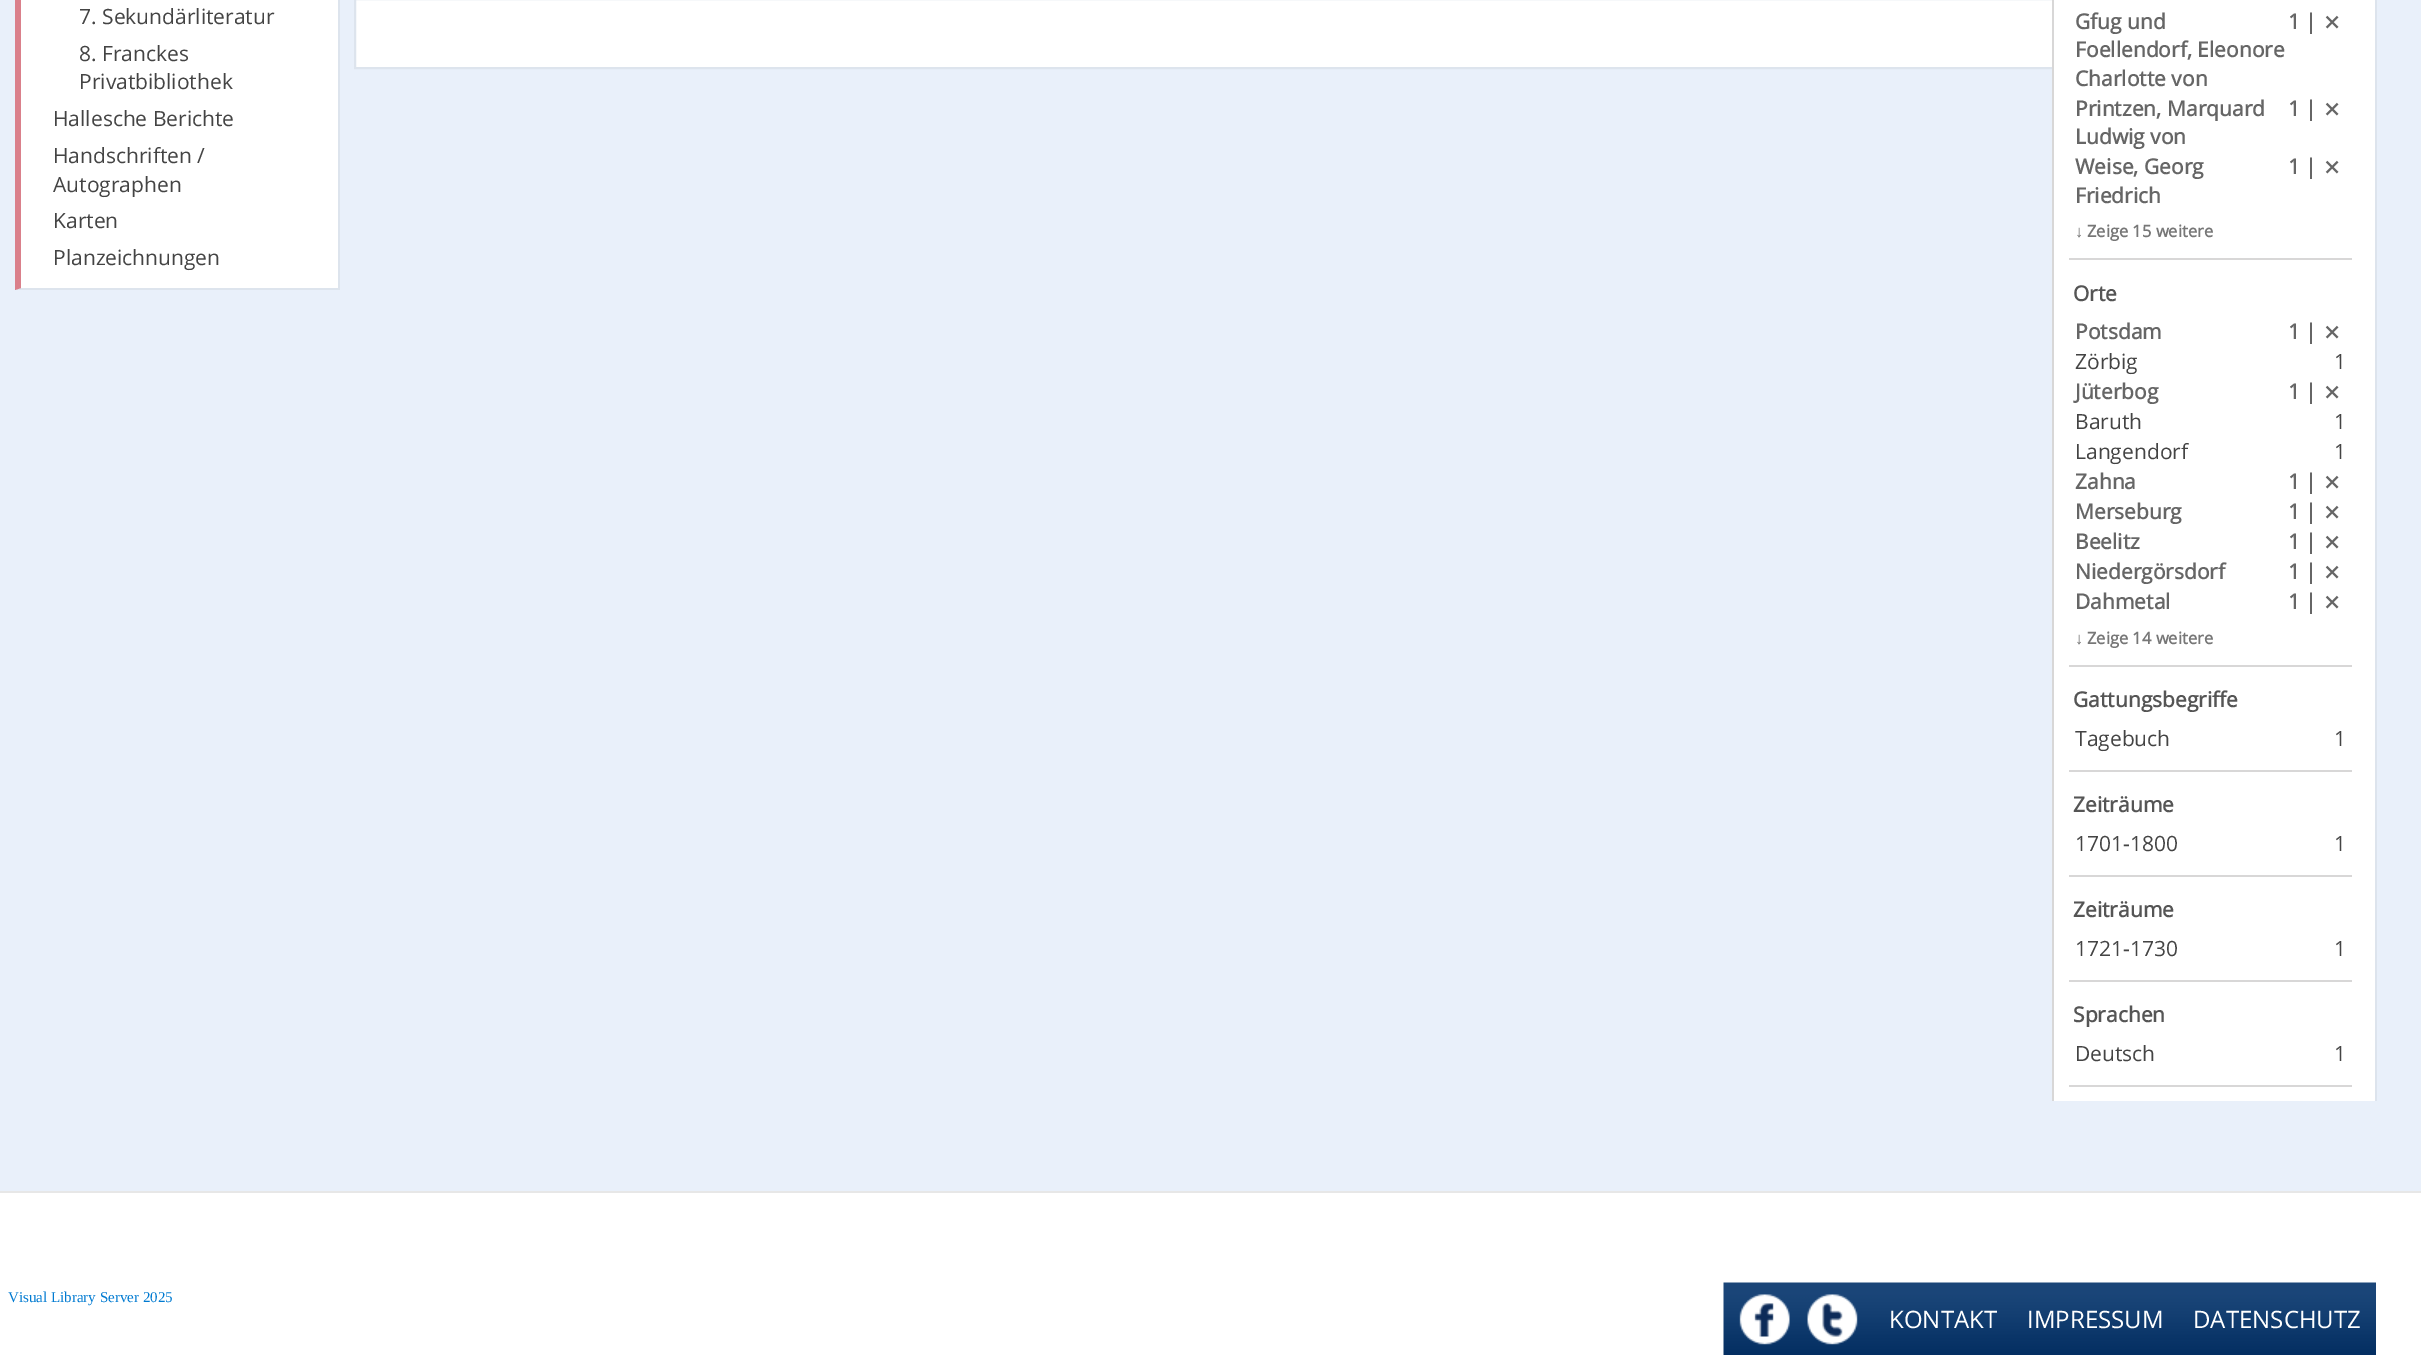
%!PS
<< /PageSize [2421 1355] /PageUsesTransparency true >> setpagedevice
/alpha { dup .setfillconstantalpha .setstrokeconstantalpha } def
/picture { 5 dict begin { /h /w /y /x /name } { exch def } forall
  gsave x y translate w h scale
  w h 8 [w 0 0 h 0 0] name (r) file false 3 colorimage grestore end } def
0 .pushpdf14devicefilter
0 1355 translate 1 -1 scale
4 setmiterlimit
1 setgray
0 0 2421 1355 rectfill
0.914 0.941 0.98 setrgbcolor
0 0 2421 1191 rectfill
1 setgray
15 0 323 290 rectfill
0.867 0.894 0.929 setrgbcolor
338 0 2 290 rectfill
newpath 339 290 moveto 15 290 lineto 21 288 lineto 338 288 lineto closepath fill
0.6 alpha
0.757 0.169 0.239 setrgbcolor
newpath 15 290 moveto 15 -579 lineto 21 -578 lineto 21 288 lineto closepath fill
/OpenSans-Regular [21 0 0 -21 0 0] selectfont
1 alpha
0.267 setgray
79 24 moveto (7. Sekundärliteratur) show
79 61 moveto (8. Franckes) show
79 89 moveto (Privatbibliothek) show
53 126 moveto (Hallesche Berichte) show
53 163 moveto (Handschriften /) show
53 192 moveto (Autographen) show
53 228 moveto (Karten) show
53 265 moveto (Planzeichnungen) show
1 setgray
356 0 1696 67 rectfill
0.867 0.894 0.929 setrgbcolor
2 setlinewidth
355 -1 2020 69 rectstroke
1 setgray
2054 0 321 1101 rectfill
0.867 0.894 0.929 setrgbcolor
2375 0 2 1101 rectfill
0.847 0.843 0.843 setrgbcolor
2052 0 2 1101 rectfill
2069 258 283 2 rectfill
/OpenSans-Bold [21 0 0 -21 0 0] selectfont
0.4 setgray
2075 29 moveto (Gfug und) show
2288 29 moveto (1 |) show
/DejaVuSans-Bold [21 0 0 -21 0 0] selectfont
2323 29 moveto (⨯) show
/OpenSans-Bold [21 0 0 -21 0 0] selectfont
2075 57 moveto (Foellendorf, Eleonore) show
2075 86 moveto (Charlotte von) show
2075 116 moveto (Printzen, Marquard) show
2288 116 moveto (1 |) show
/DejaVuSans-Bold [21 0 0 -21 0 0] selectfont
2323 116 moveto (⨯) show
/OpenSans-Bold [21 0 0 -21 0 0] selectfont
2075 144 moveto (Ludwig von) show
2075 174 moveto (Weise, Georg) show
2288 174 moveto (1 |) show
/DejaVuSans-Bold [21 0 0 -21 0 0] selectfont
2323 174 moveto (⨯) show
/OpenSans-Bold [21 0 0 -21 0 0] selectfont
2075 203 moveto (Friedrich) show
/LiberationSans-Bold [16.5 0 0 -16.5 0 0] selectfont
0.467 setgray
2075 237 moveto (↓) show
/OpenSans-Bold [16.5 0 0 -16.5 0 0] selectfont
2087 237 moveto (Zeige 15 weitere) show
0.847 0.843 0.843 setrgbcolor
2069 665 283 2 rectfill
/OpenSans-Bold [21 0 0 -21 0 0] selectfont
0.333 setgray
2073 301 moveto (Orte) show
0.4 setgray
2075 339 moveto (Potsdam) show
2288 339 moveto (1 |) show
/DejaVuSans-Bold [21 0 0 -21 0 0] selectfont
2323 339 moveto (⨯) show
/OpenSans-Regular [21 0 0 -21 0 0] selectfont
0.267 setgray
2075 369 moveto (Zörbig) show
2334 369 moveto (1) show
/OpenSans-Bold [21 0 0 -21 0 0] selectfont
0.4 setgray
2075 399 moveto (Jüterbog) show
2288 399 moveto (1 |) show
/DejaVuSans-Bold [21 0 0 -21 0 0] selectfont
2323 399 moveto (⨯) show
/OpenSans-Regular [21 0 0 -21 0 0] selectfont
0.267 setgray
2075 429 moveto (Baruth) show
2334 429 moveto (1) show
2075 459 moveto (Langendorf) show
2334 459 moveto (1) show
/OpenSans-Bold [21 0 0 -21 0 0] selectfont
0.4 setgray
2075 489 moveto (Zahna) show
2288 489 moveto (1 |) show
/DejaVuSans-Bold [21 0 0 -21 0 0] selectfont
2323 489 moveto (⨯) show
/OpenSans-Bold [21 0 0 -21 0 0] selectfont
2075 519 moveto (Merseburg) show
2288 519 moveto (1 |) show
/DejaVuSans-Bold [21 0 0 -21 0 0] selectfont
2323 519 moveto (⨯) show
/OpenSans-Bold [21 0 0 -21 0 0] selectfont
2075 549 moveto (Beelitz) show
2288 549 moveto (1 |) show
/DejaVuSans-Bold [21 0 0 -21 0 0] selectfont
2323 549 moveto (⨯) show
/OpenSans-Bold [21 0 0 -21 0 0] selectfont
2075 579 moveto (Niedergörsdorf) show
2288 579 moveto (1 |) show
/DejaVuSans-Bold [21 0 0 -21 0 0] selectfont
2323 579 moveto (⨯) show
/OpenSans-Bold [21 0 0 -21 0 0] selectfont
2075 609 moveto (Dahmetal) show
2288 609 moveto (1 |) show
/DejaVuSans-Bold [21 0 0 -21 0 0] selectfont
2323 609 moveto (⨯) show
/LiberationSans-Bold [16.5 0 0 -16.5 0 0] selectfont
0.467 setgray
2075 644 moveto (↓) show
/OpenSans-Bold [16.5 0 0 -16.5 0 0] selectfont
2087 644 moveto (Zeige 14 weitere) show
0.847 0.843 0.843 setrgbcolor
2069 770 283 2 rectfill
/OpenSans-Bold [21 0 0 -21 0 0] selectfont
0.333 setgray
2073 707 moveto (Gattungsbegriffe) show
/OpenSans-Regular [21 0 0 -21 0 0] selectfont
0.267 setgray
2075 746 moveto (Tagebuch) show
2334 746 moveto (1) show
0.847 0.843 0.843 setrgbcolor
2069 875 283 2 rectfill
/OpenSans-Bold [21 0 0 -21 0 0] selectfont
0.333 setgray
2073 812 moveto (Zeiträume) show
/OpenSans-Regular [21 0 0 -21 0 0] selectfont
0.267 setgray
2075 851 moveto (1701-1800) show
2334 851 moveto (1) show
0.847 0.843 0.843 setrgbcolor
2069 980 283 2 rectfill
/OpenSans-Bold [21 0 0 -21 0 0] selectfont
0.333 setgray
2073 917 moveto (Zeiträume) show
/OpenSans-Regular [21 0 0 -21 0 0] selectfont
0.267 setgray
2075 956 moveto (1721-1730) show
2334 956 moveto (1) show
0.847 0.843 0.843 setrgbcolor
2069 1085 283 2 rectfill
/OpenSans-Bold [21 0 0 -21 0 0] selectfont
0.333 setgray
2073 1022 moveto (Sprachen) show
/OpenSans-Regular [21 0 0 -21 0 0] selectfont
0.267 setgray
2075 1061 moveto (Deutsch) show
2334 1061 moveto (1) show
0.906 setgray
0 1191 2421 2 rectfill
/LiberationSerif-Regular [15 0 0 -15 0 0] selectfont
0 0.478 0.82 setrgbcolor
8 1302 moveto (Visual Library Server 2025) show
(img1.rgb) 1723 1282 653 73 picture
(img2.rgb) 1739 1294 51 51 picture
(img3.rgb) 1807 1294 51 51 picture
/OpenSans-Regular [24 0 0 -24 0 0] selectfont
1 setgray
1889 1328 moveto (KONTAKT) show
2027 1328 moveto (IMPRESSUM) show
2193 1328 moveto (DATENSCHUTZ) show
.poppdf14devicefilter showpage
